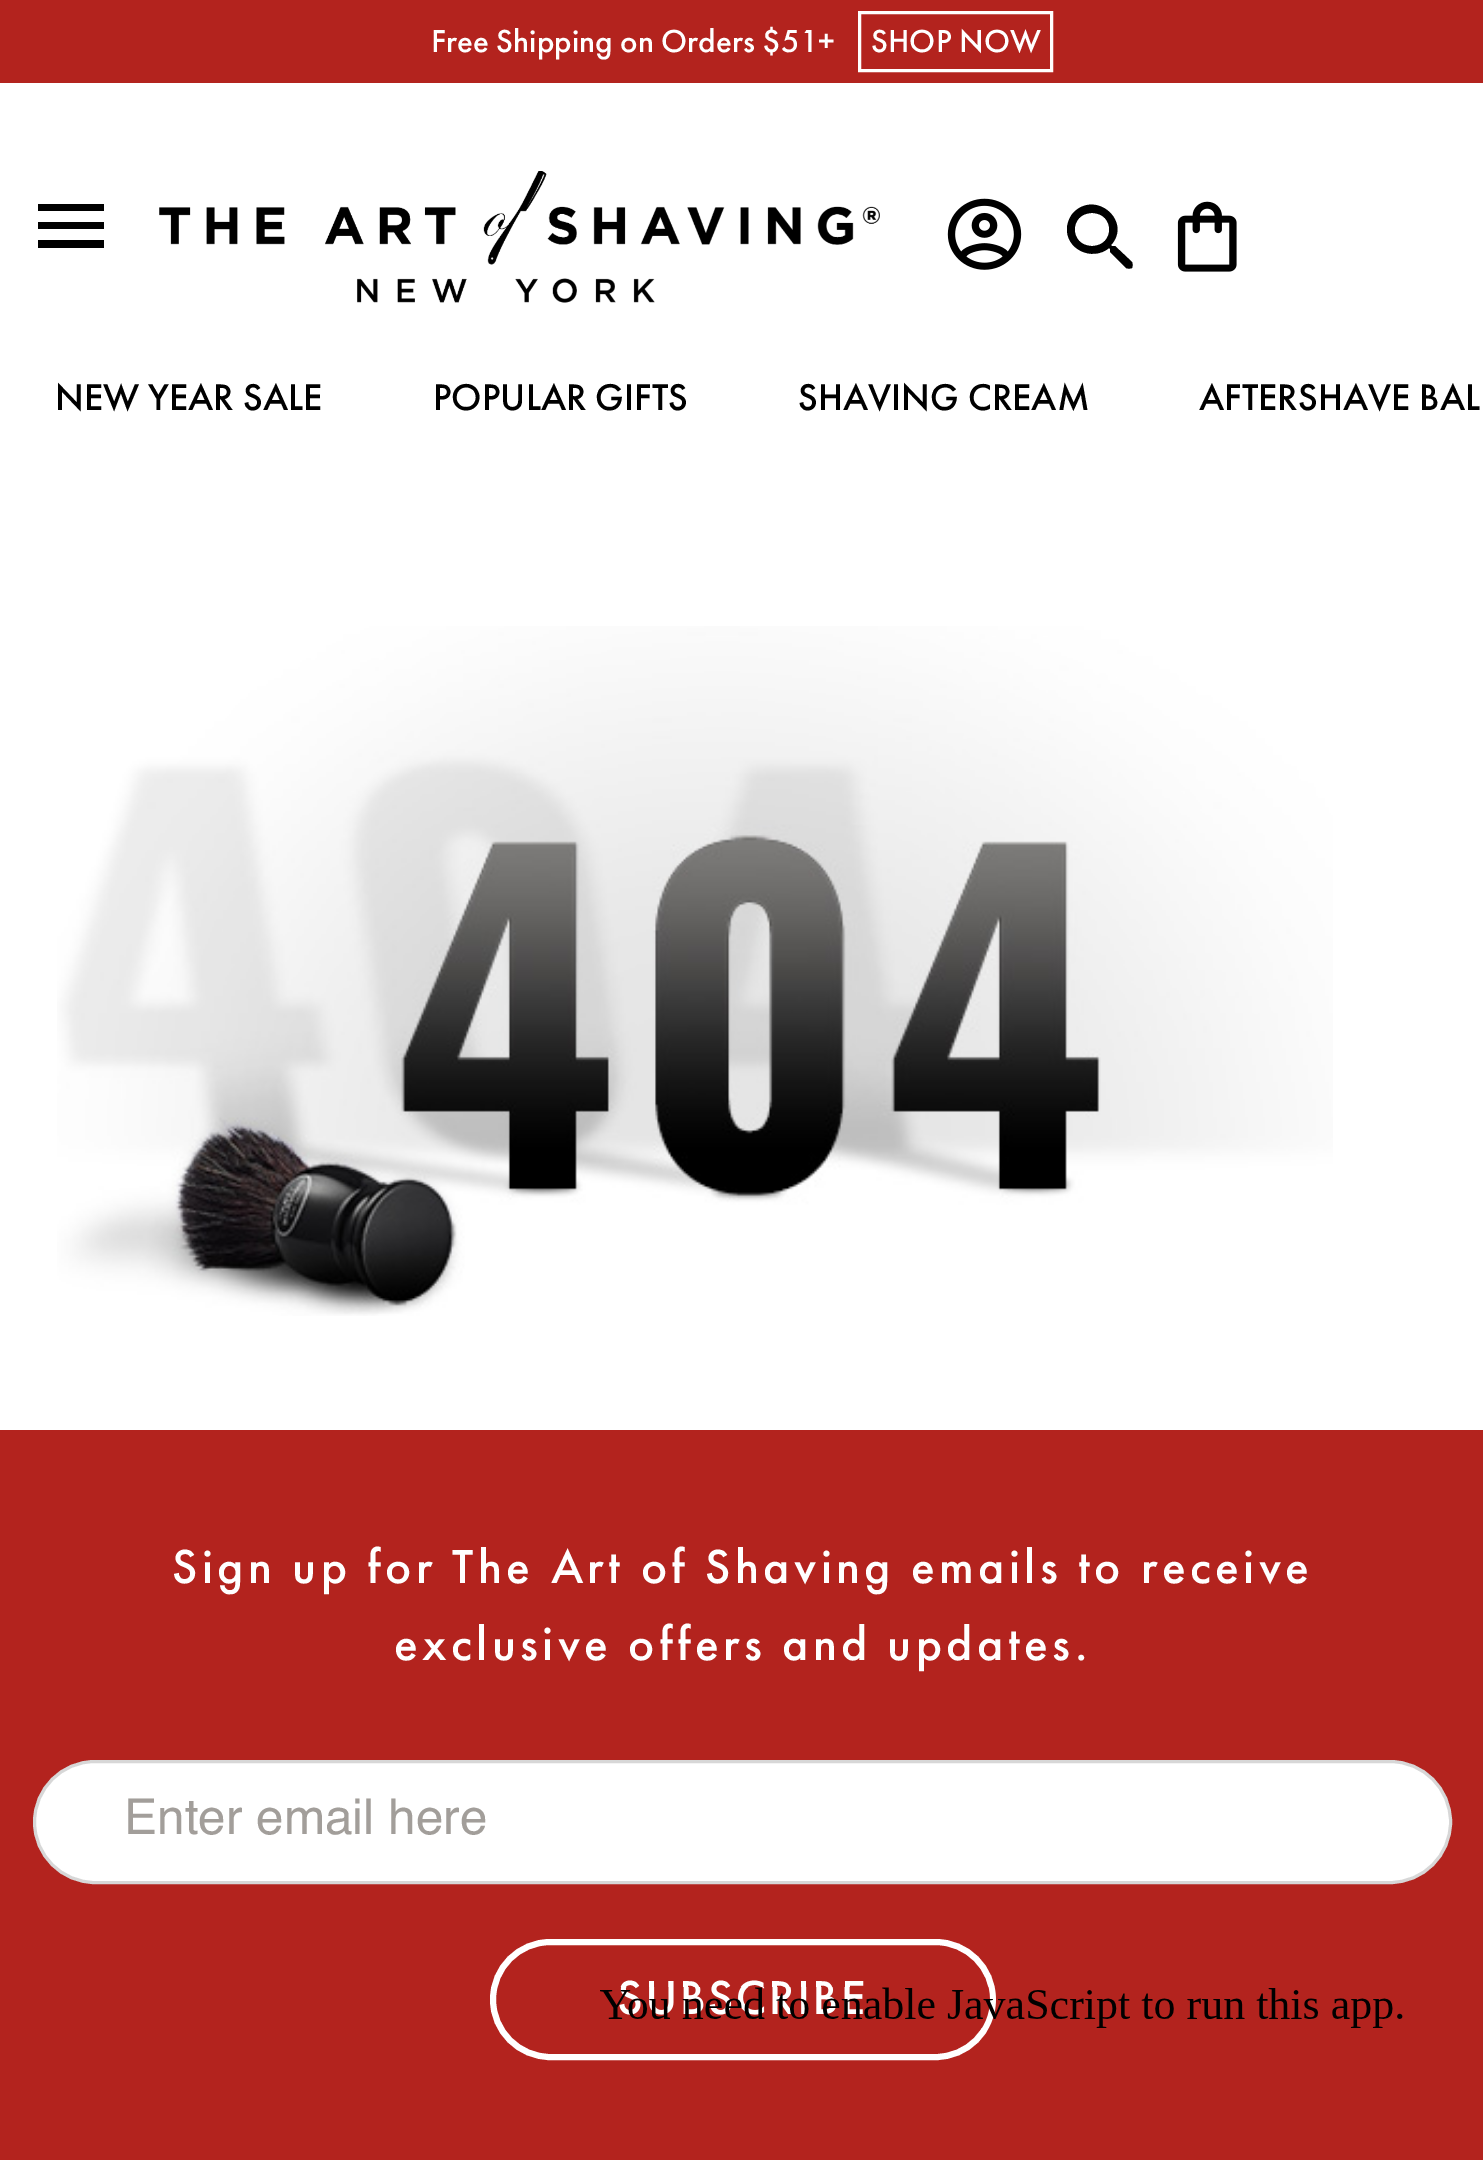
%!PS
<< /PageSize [1483 2160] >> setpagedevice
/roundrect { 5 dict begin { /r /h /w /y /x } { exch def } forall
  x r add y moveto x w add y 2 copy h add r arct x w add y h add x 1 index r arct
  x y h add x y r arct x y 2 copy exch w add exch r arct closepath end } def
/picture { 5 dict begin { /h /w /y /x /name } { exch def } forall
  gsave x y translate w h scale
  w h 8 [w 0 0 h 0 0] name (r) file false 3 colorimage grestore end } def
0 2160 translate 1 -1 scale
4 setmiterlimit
1 setgray
0 0 1483 2160 rectfill
0.702 0.137 0.118 setrgbcolor
0 0 1483 83 rectfill
/FuturaPT-Medium [33 0 0 -33 0 0] selectfont
1 setgray
431 52 moveto (Free Shipping on Orders $51+) show
3 setlinewidth
859.5 12.5 192 58 rectstroke
871 52 moveto (SHOP NOW) show
0 setgray
newpath 38 248 moveto 104 248 lineto 104 240 lineto 38 240 lineto closepath 38 229 moveto 104 229 lineto 104 222 lineto 38 222 lineto closepath 38 204 moveto 38 211 lineto 104 211 lineto 104 204 lineto closepath fill
(img1.rgb) 159 171 721 132 picture
(img2.rgb) 947 198 75 72 picture
gsave
1067 204 66 66 rectclip
newpath 1115 246 moveto 1112 246 lineto 1111 245 lineto 1132 222 1097 190 1074 212 curveto 1070 216 1068 221 1067 227 curveto 1065 249 1092 262 1109 248 curveto 1110 249 lineto 1110 252 lineto 1126 268 lineto 1128 269 1130 269 1132 268 curveto 1133 266 1133 264 1132 262 curveto closepath 1092 246 moveto 1069 246 1069 213 1092 213 curveto 1115 213 1115 246 1092 246 curveto closepath fill
grestore
(img3.rgb) 1177 201 60 71 picture
/FuturaPT-Medium [38.5 0 0 -38.5 0 0] selectfont
55 410 moveto (NEW YEAR SALE) show
433 410 moveto (POPULAR GIFTS) show
798 410 moveto (SHAVING CREAM) show
1199 410 moveto (AFTERSHAVE BAL) show
(img4.rgb) 57 626 1276 690 picture
0.702 0.137 0.118 setrgbcolor
0 1430 1483 730 rectfill
/FuturaPT-Medium [49.5 0 0 -49.5 0 0] selectfont
1 setgray
172 1583 moveto 4.4 0 (Sign up for The Art of Shaving emails to receive) ashow
394 1660 moveto 4.4 0 (exclusive offers and updates.) ashow
34.5 1761.5 1416 121 60.5 roundrect gsave fill grestore
0.843 setgray
stroke
/Helvetica-Regular [49.5 0 0 -49.5 0 0] selectfont
0.635 0.62 0.604 setrgbcolor
124 1834 moveto (Enter email here) show
1 setgray
6 setlinewidth
493 1942 500 115 57.5 roundrect stroke
/FuturaPT-Medium [49.5 0 0 -49.5 0 0] selectfont
617 2014 moveto 2.25 0 (SUBSCRIBE) ashow
(img5.rgb) 600 1987 803 41 picture
showpage
